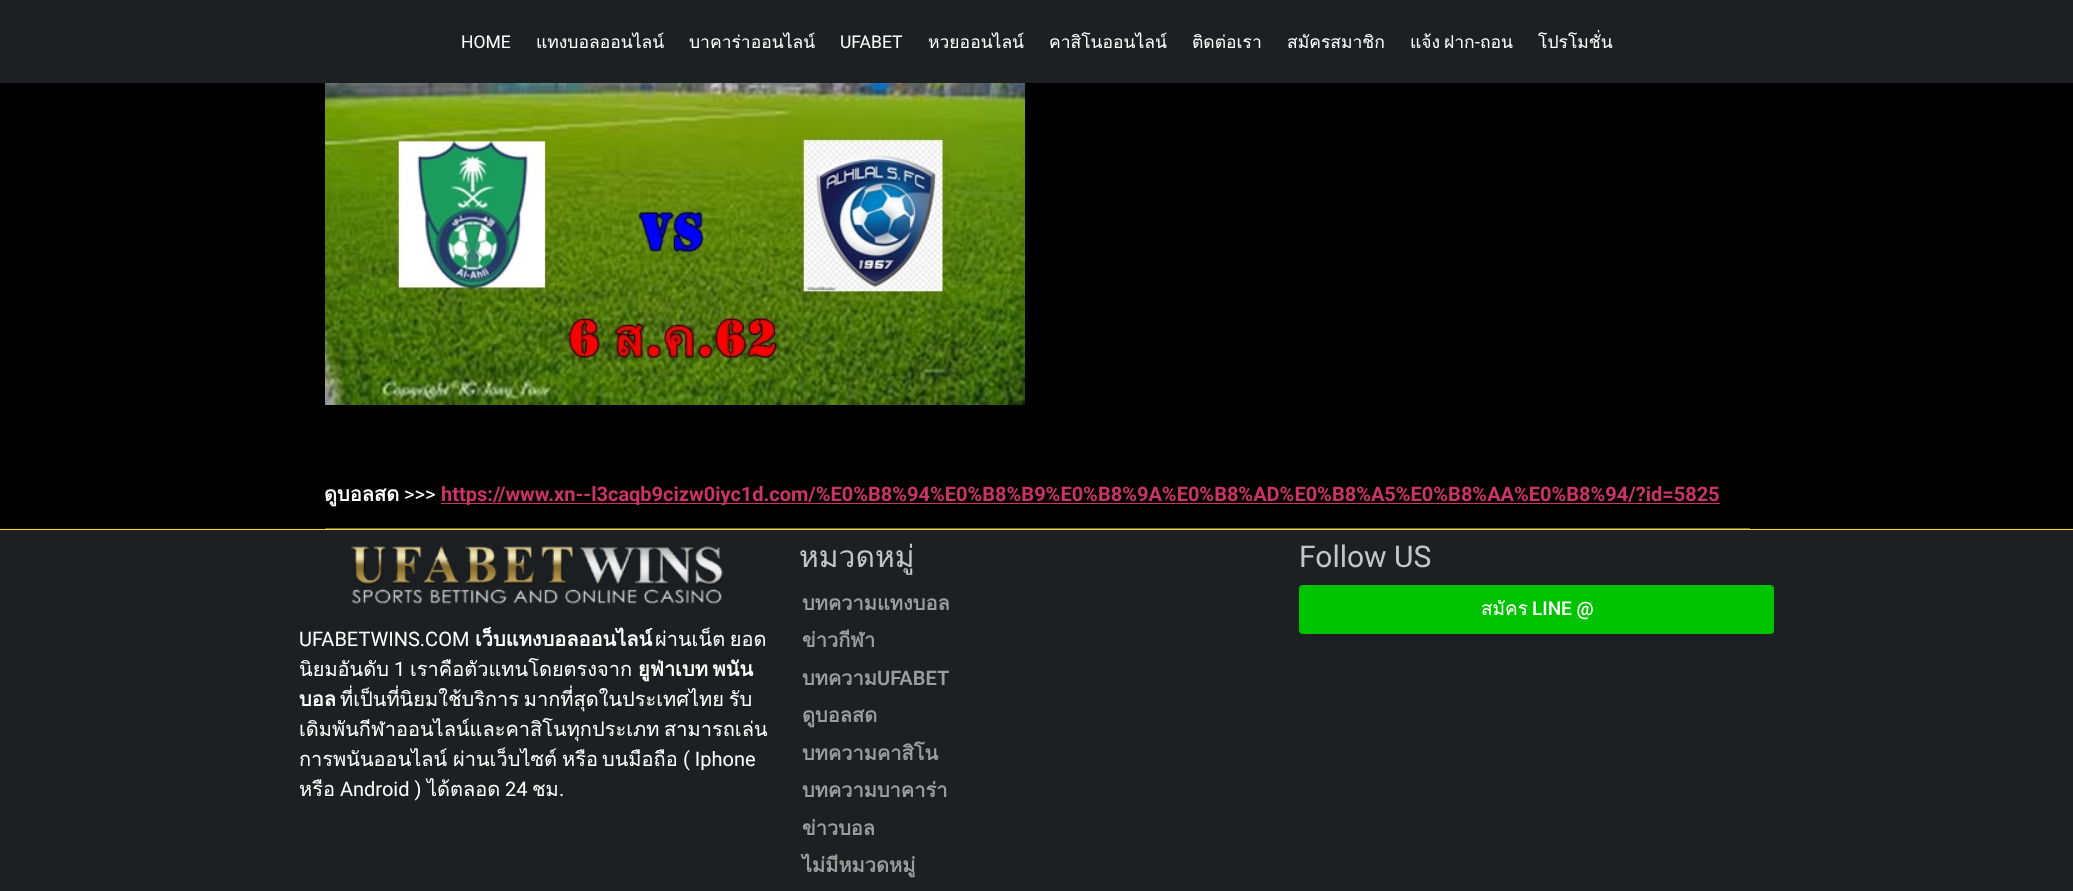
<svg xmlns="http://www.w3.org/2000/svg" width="2073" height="891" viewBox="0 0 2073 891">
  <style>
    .t1 { font: 17.5px Roboto; fill: #fff; }
    .t2 { font: 17.5px Loma; fill: #fff; }
    .t3 { font: bold 20px Loma; fill: #fff; }
    .t4 { font: 20px Roboto; fill: #fff; }
    .t5 { font: bold 20px Roboto; fill: #c36; }
    .t6 { font: 30px Loma; fill: #c5c5c5; }
    .t7 { font: bold 20px Loma; fill: #9c9c9c; }
    .t8 { font: 600 20px Roboto; fill: #9c9c9c; }
    .t9 { font: 30px Roboto; fill: #c5c5c5; }
    .t10 { font: 19px Loma; fill: #fff; }
    .t11 { font: 500 19px Roboto; fill: #fff; }
    .t12 { font: 20px Loma; fill: #fff; }
  </style>
  <rect width="100%" height="100%" fill="#000"/>
  <rect x="0" y="0" width="2073" height="83" fill="#1d2022"/>
  <text x="461" y="48" class="t1">HOME</text>
  <text x="536" y="48" class="t2">แทงบอลออนไลน์</text>
  <text x="689" y="48" class="t2">บาคาร่าออนไลน์</text>
  <text x="840" y="48" class="t1">UFABET</text>
  <text x="928" y="48" class="t2">หวยออนไลน์</text>
  <text x="1049" y="48" class="t2">คาสิโนออนไลน์</text>
  <text x="1192" y="48" class="t2">ติดต่อเรา</text>
  <text x="1287" y="48" class="t2">สมัครสมาชิก</text>
  <text x="1410" y="48" word-spacing="-2" class="t2">แจ้ง ฝาก</text>
  <text x="1475" y="48" class="t1">-</text>
  <text x="1480" y="48" class="t2">ถอน</text>
  <text x="1538" y="48" class="t2">โปรโมชั่น</text>
  <rect x="325" y="528" width="1425" height="1" fill="#666"/>
  <image x="325" y="83" width="700" height="322" href="images/1.png"/>
  <text x="324" y="501" class="t3">ดูบอลสด</text>
  <text x="404" y="501" class="t4">&gt;&gt;&gt;</text>
  <rect x="441" y="503" width="1279" height="1" fill="#c36"/>
  <text x="441" y="501" class="t5">https://www.xn--l3caqb9cizw0iyc1d.com/%E0%B8%94%E0%B8%B9%E0%B8%9A%E0%B8%AD%E0%B8%A5%E0%B8%AA%E0%B8%94/?id=5825</text>
  <rect x="0" y="530" width="2073" height="361" fill="#1d2022"/>
  <rect x="0" y="529" width="2073" height="1" fill="#ffd801"/>
  <text x="799" y="567" class="t6">หมวดหมู่</text>
  <text x="802" y="610" class="t7">บทความแทงบอล</text>
  <text x="802" y="647" class="t7">ข่าวกีฬา</text>
  <text x="802" y="685" class="t7">บทความ</text>
  <text x="877" y="685" class="t8">UFABET</text>
  <text x="802" y="722" class="t7">ดูบอลสด</text>
  <text x="802" y="760" class="t7">บทความคาสิโน</text>
  <text x="802" y="797" class="t7">บทความบาคาร่า</text>
  <text x="802" y="835" class="t7">ข่าวบอล</text>
  <text x="802" y="872" class="t7">ไม่มีหมวดหมู่</text>
  <text x="1299" y="567" class="t9">Follow US</text>
  <rect x="1299" y="585" width="475" height="49" rx="4" fill="#00c300"/>
  <text x="1481" y="615" class="t10">สมัคร</text>
  <text x="1532" y="615" class="t11">LINE @</text>
  <image x="351" y="546" width="372" height="58" href="images/2.png"/>
  <text x="299" y="646" class="t4">UFABETWINS.COM</text>
  <text x="475" y="646" class="t3">เว็บแทงบอลออนไลน์</text>
  <text x="655" y="646" word-spacing="-2" class="t12">ผ่านเน็ต ยอด</text>
  <text x="299" y="676" class="t12">นิยมอันดับ</text>
  <text x="394" y="676" class="t4">1</text>
  <text x="410" y="676" class="t12">เราคือตัวแทนโดยตรงจาก</text>
  <text x="638" y="676" word-spacing="-2" class="t3">ยูฟ่าเบท พนัน</text>
  <text x="299" y="706" class="t3">บอล</text>
  <text x="340" y="706" word-spacing="-2" class="t12">ที่เป็นที่นิยมใช้บริการ มากที่สุดในประเทศไทย รับ</text>
  <text x="299" y="736" word-spacing="-2" class="t12">เดิมพันกีฬาออนไลน์และคาสิโนทุกประเภท สามารถเล่น</text>
  <text x="299" y="766" class="t12">การพนันออนไลน์</text>
  <text x="453" y="766" class="t12">ผ่านเว็บไซต์</text>
  <text x="562" y="766" class="t12">หรือ</text>
  <text x="602" y="766" class="t12">บนมือถือ</text>
  <text x="683" y="766" class="t4">( Iphone</text>
  <text x="299" y="796" class="t12">หรือ</text>
  <text x="340" y="796" class="t4">Android )</text>
  <text x="427" y="796" class="t12">ได้ตลอด</text>
  <text x="505" y="796" class="t4">24</text>
  <text x="532" y="796" class="t12">ชม</text>
  <text x="559" y="796" class="t4">.</text>
</svg>
